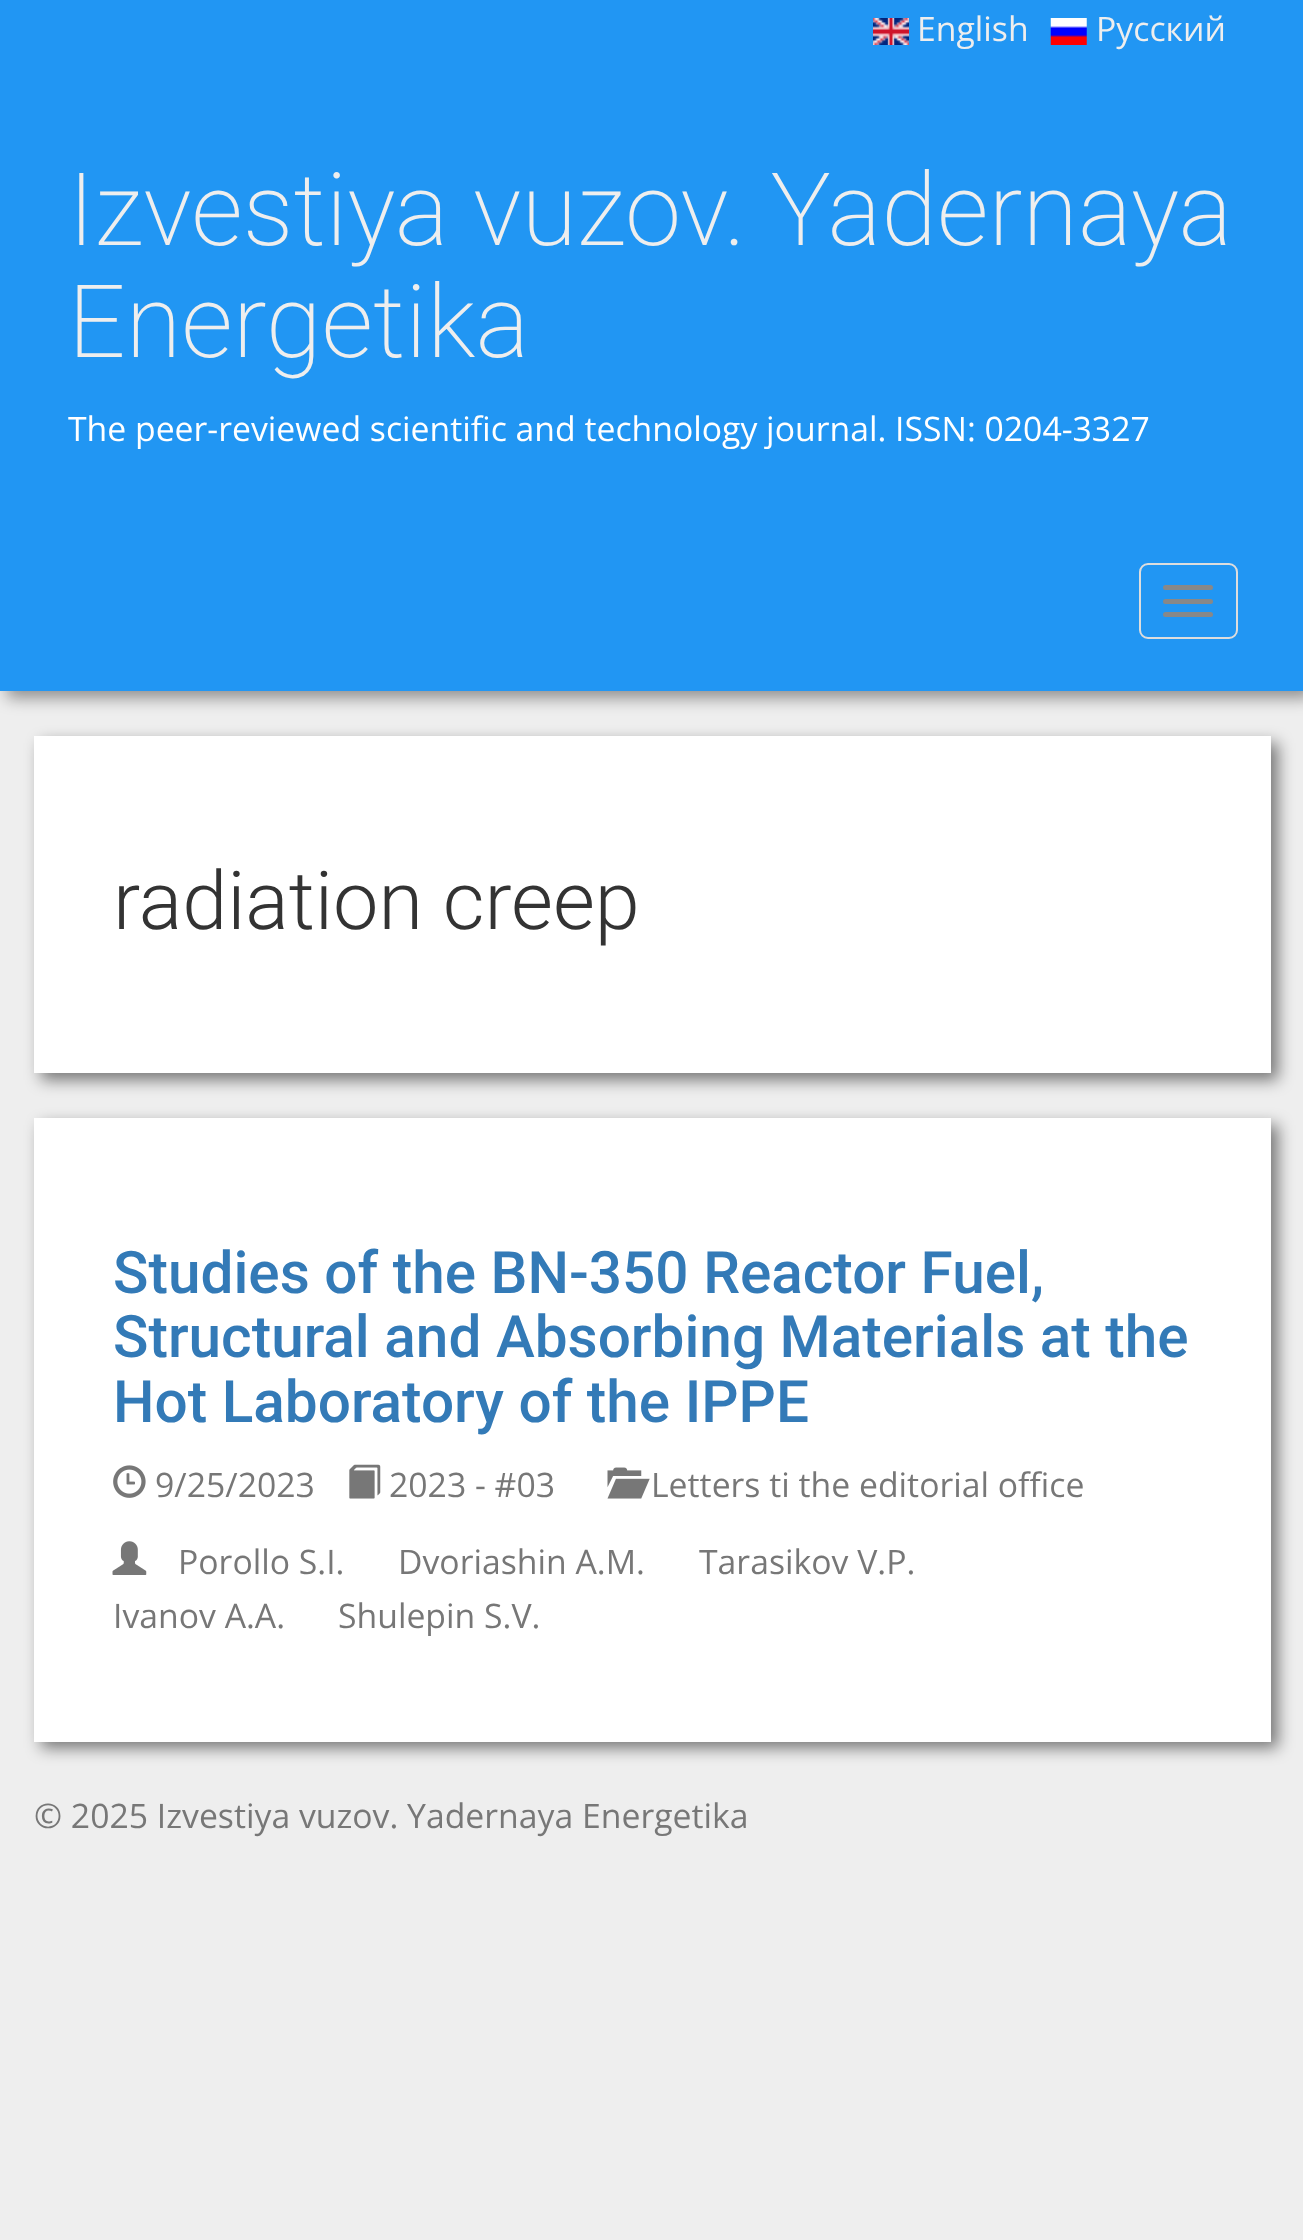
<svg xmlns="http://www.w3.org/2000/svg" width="1303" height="2240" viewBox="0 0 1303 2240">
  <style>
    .t1 { font: 33.75px Open Sans; fill: #eee; }
    .t2 { font: 200 101.25px Roboto; fill: #eee; }
    .t3 { font: 33.75px Open Sans; fill: #fff; }
    .t4 { font: 300 81px Roboto; fill: #333; }
    .t5 { font: 500 58.5px Roboto; fill: #337ab7; }
    .t6 { font: 33.75px Open Sans; fill: #777; }
  </style>
  <rect width="100%" height="100%" fill="#eee"/>
  <rect x="7" y="7" width="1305" height="691" fill="#00000066" filter="blur(8px)"/>
  <rect x="0" y="0" width="1303" height="691" fill="#2196f3"/>
  <image x="873" y="18" width="36" height="27" href="images/1.png"/>
  <text x="917" y="41" class="t1">English</text>
  <image x="1050" y="18" width="37" height="27" href="images/2.png"/>
  <text x="1096" y="41" class="t1">Русский</text>
  <text x="68" y="245" class="t2">Izvestiya vuzov. Yadernaya</text>
  <text x="68" y="357" class="t2">Energetika</text>
  <text x="68" y="441" class="t3">The peer-reviewed scientific and technology journal. ISSN: 0204-3327</text>
  <rect x="1140" y="564" width="97" height="74" rx="8" fill="none" stroke="#ddd" stroke-width="2"/>
  <rect x="1163" y="585" width="50" height="5" rx="2.5" fill="#888"/>
  <rect x="1163" y="599" width="50" height="5" rx="2.5" fill="#888"/>
  <rect x="1163" y="612" width="50" height="5" rx="2.5" fill="#888"/>
  <rect x="41" y="743" width="1237" height="337" fill="#00000080" filter="blur(8px)"/>
  <rect x="34" y="736" width="1237" height="337" fill="#fff"/>
  <text x="113" y="929" class="t4">radiation creep</text>
  <rect x="41" y="1125" width="1237" height="623" fill="#00000080" filter="blur(8px)"/>
  <rect x="34" y="1118" width="1237" height="624" fill="#fff"/>
  <text x="113" y="1293" class="t5">Studies of the BN-350 Reactor Fuel,</text>
  <text x="113" y="1357" class="t5">Structural and Absorbing Materials at the</text>
  <text x="113" y="1422" class="t5">Hot Laboratory of the IPPE</text>
  <image x="113" y="1465" width="33" height="33" href="images/3.png"/>
  <text x="155" y="1497" class="t6">9/25/2023</text>
  <image x="349" y="1464" width="32" height="35" href="images/4.png"/>
  <text x="389" y="1497" class="t6">2023 - #03</text>
  <image x="607" y="1467" width="43" height="32" href="images/5.png"/>
  <text x="651" y="1497" class="t6">Letters ti the editorial office</text>
  <image x="112" y="1541" width="35" height="34" href="images/6.png"/>
  <text x="178" y="1574" class="t6">Porollo S.I.</text>
  <text x="398" y="1574" class="t6">Dvoriashin A.M.</text>
  <text x="699" y="1574" class="t6">Tarasikov V.P.</text>
  <text x="113" y="1628" class="t6">Ivanov A.A.</text>
  <text x="338" y="1628" class="t6">Shulepin S.V.</text>
  <text x="34" y="1828" class="t6">© 2025 Izvestiya vuzov. Yadernaya Energetika</text>
</svg>
